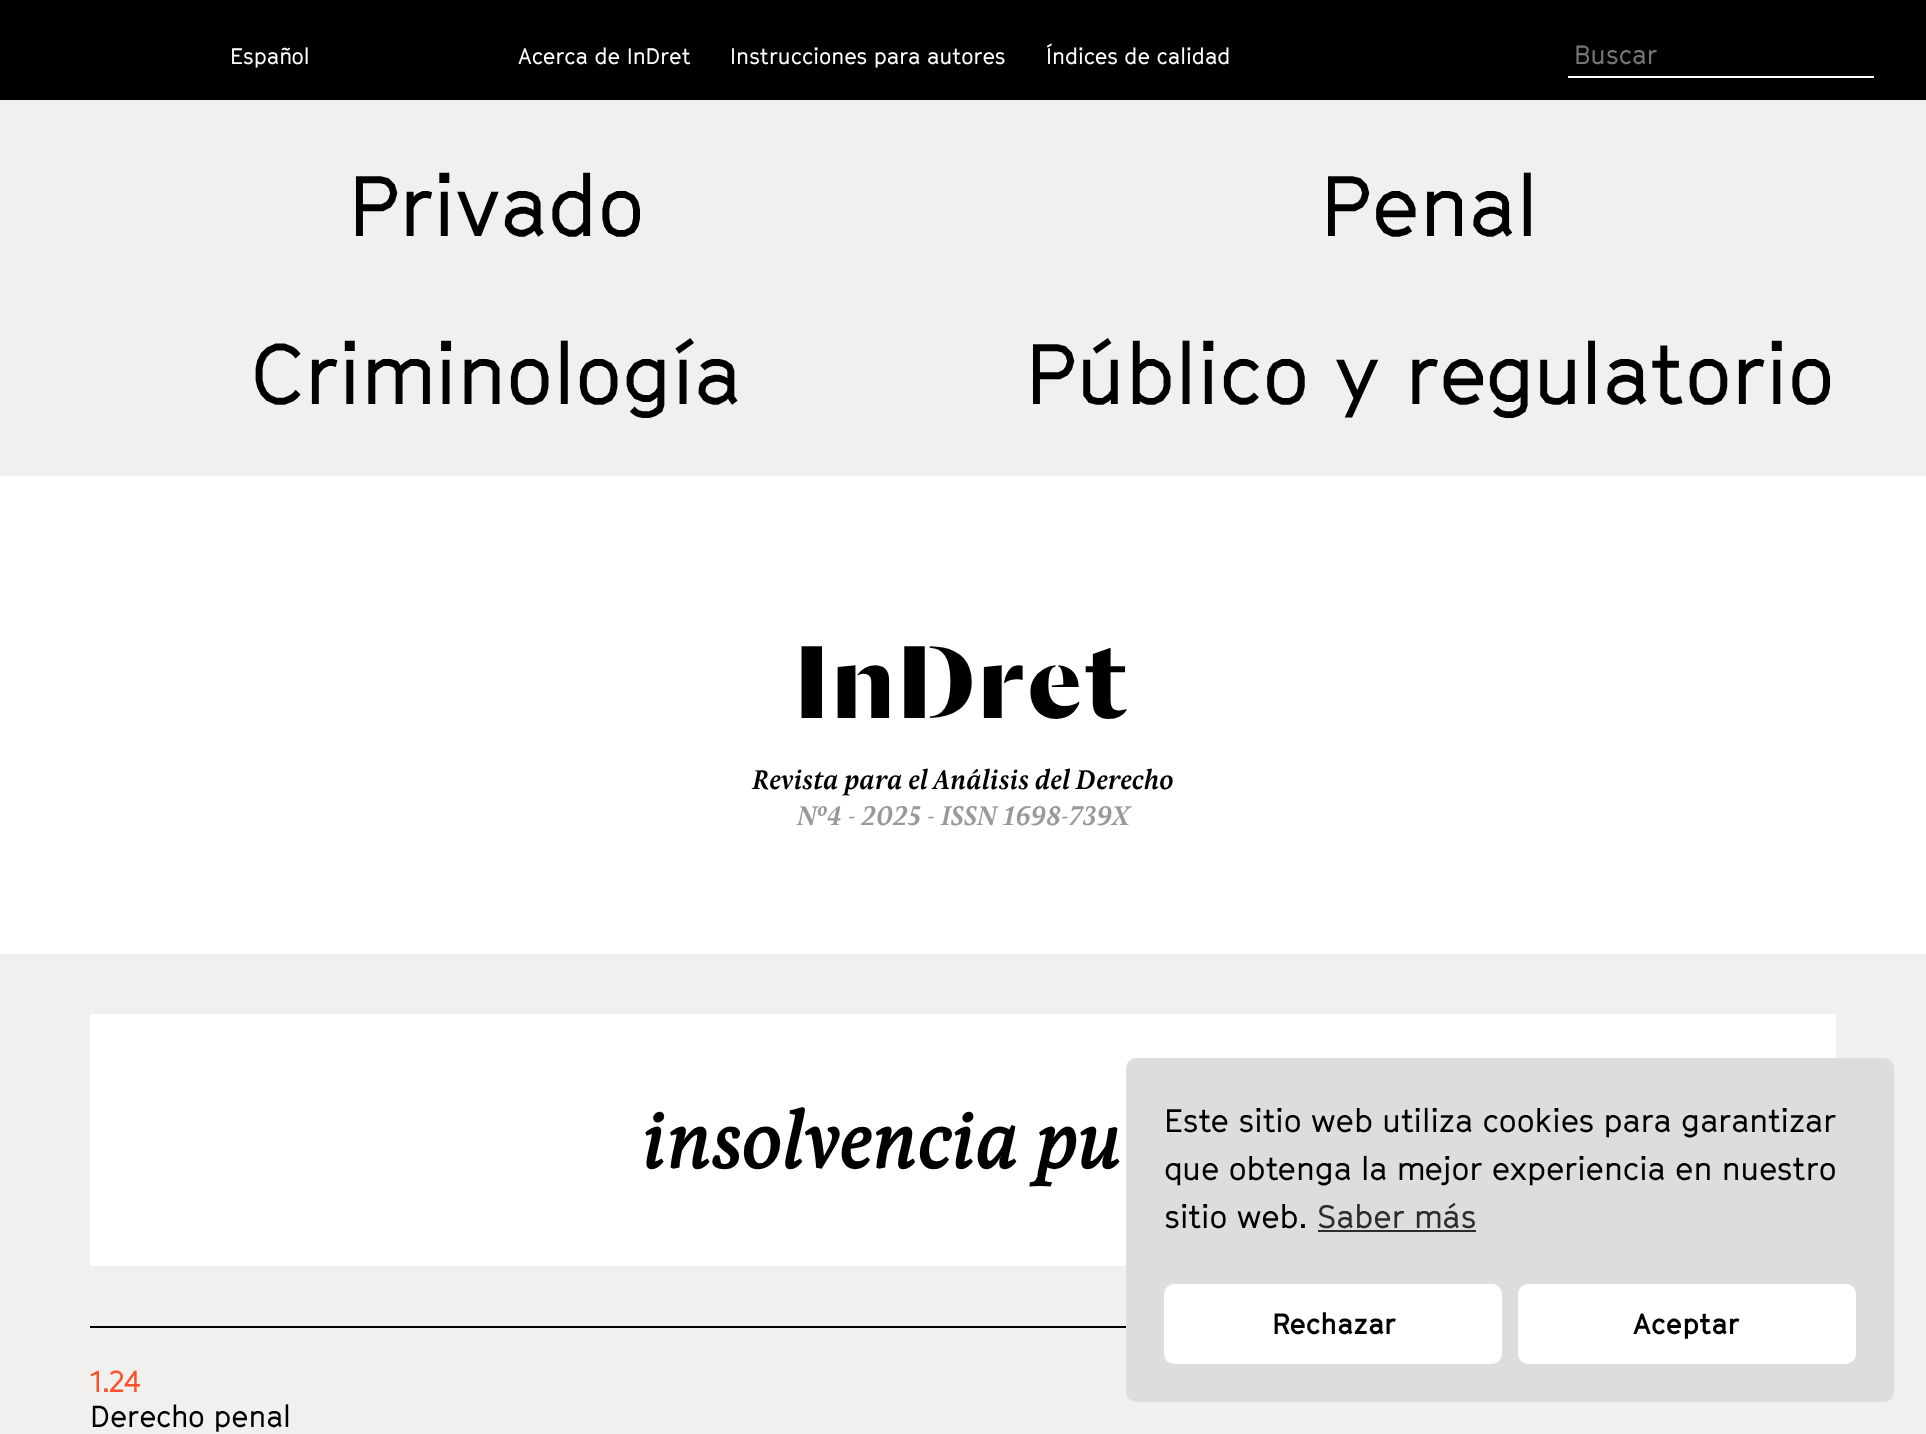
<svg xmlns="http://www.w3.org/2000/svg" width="1926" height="1434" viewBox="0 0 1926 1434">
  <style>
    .t1 { font: 22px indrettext; fill: #fff; }
    .t2 { font: 26px indrettext; fill: #757575; }
    .t3 { font: 84px indrettext; fill: #000; }
    .t4 { font: bold 114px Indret; letter-spacing: 4px; fill: #000; }
    .t5 { font: italic 600 28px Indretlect; fill: #000; }
    .t6 { font: italic 600 28px Indretlect; fill: #999; }
    .t7 { font: italic bold 80px Indretlect; fill: #000; }
    .t8 { font: 30px indrettext; fill: #fd502c; }
    .t9 { font: 30px indrettext; fill: #000; }
    .t10 { font: 32px indrettext; fill: #000; }
    .t11 { font: 32px indrettext; fill: #2c2c2c; }
    .t12 { font: bold 29px indrettext; fill: #000; }
  </style>
  <rect width="100%" height="100%" fill="#fff"/>
  <rect x="0" y="0" width="1926" height="100" fill="#000"/>
  <text x="230" y="64" class="t1">Español</text>
  <text x="518" y="64" class="t1">Acerca de InDret</text>
  <text x="730" y="64" class="t1">Instrucciones para autores</text>
  <text x="1046" y="64" class="t1">Índices de calidad</text>
  <rect x="1568" y="76" width="306" height="2" fill="#fff"/>
  <text x="1574" y="64" class="t2">Buscar</text>
  <rect x="0" y="100" width="1926" height="376" fill="#f1f0ee"/>
  <text x="348" y="236" class="t3">Privado</text>
  <text x="1320" y="236" class="t3">Penal</text>
  <text x="251" y="404" class="t3">Criminología</text>
  <text x="1025" y="404" class="t3">Público y regulatorio</text>
  <text x="795" y="718" class="t4">InDret</text>
  <text x="752" y="789" class="t5">Revista para el Análisis del Derecho</text>
  <text x="797" y="825" class="t6">Nº4 - 2025 - ISSN 1698-739X</text>
  <rect x="0" y="954" width="1926" height="480" fill="#f1f0ee"/>
  <rect x="90" y="1014" width="1746" height="252" fill="#fff"/>
  <text x="640" y="1168" class="t7">insolvencia pu</text>
  <rect x="90" y="1326" width="1036" height="2" fill="#000"/>
  <text x="90" y="1392" class="t8">1.24</text>
  <text x="90" y="1427" class="t9">Derecho penal</text>
  <rect x="1126" y="1058" width="768" height="344" rx="10" fill="#ddd"/>
  <text x="1164" y="1132" class="t10">Este sitio web utiliza cookies para garantizar</text>
  <text x="1164" y="1180" class="t10">que obtenga la mejor experiencia en nuestro</text>
  <text x="1164" y="1228" class="t10">sitio web.</text>
  <text x="1317" y="1228" class="t11">Saber más</text>
  <rect x="1318" y="1230" width="158" height="2" fill="#2c2c2c"/>
  <rect x="1164" y="1284" width="338" height="80" rx="10" fill="#fff"/>
  <text x="1272" y="1334" class="t12">Rechazar</text>
  <rect x="1518" y="1284" width="338" height="80" rx="10" fill="#fff"/>
  <text x="1633" y="1334" class="t12">Aceptar</text>
</svg>
